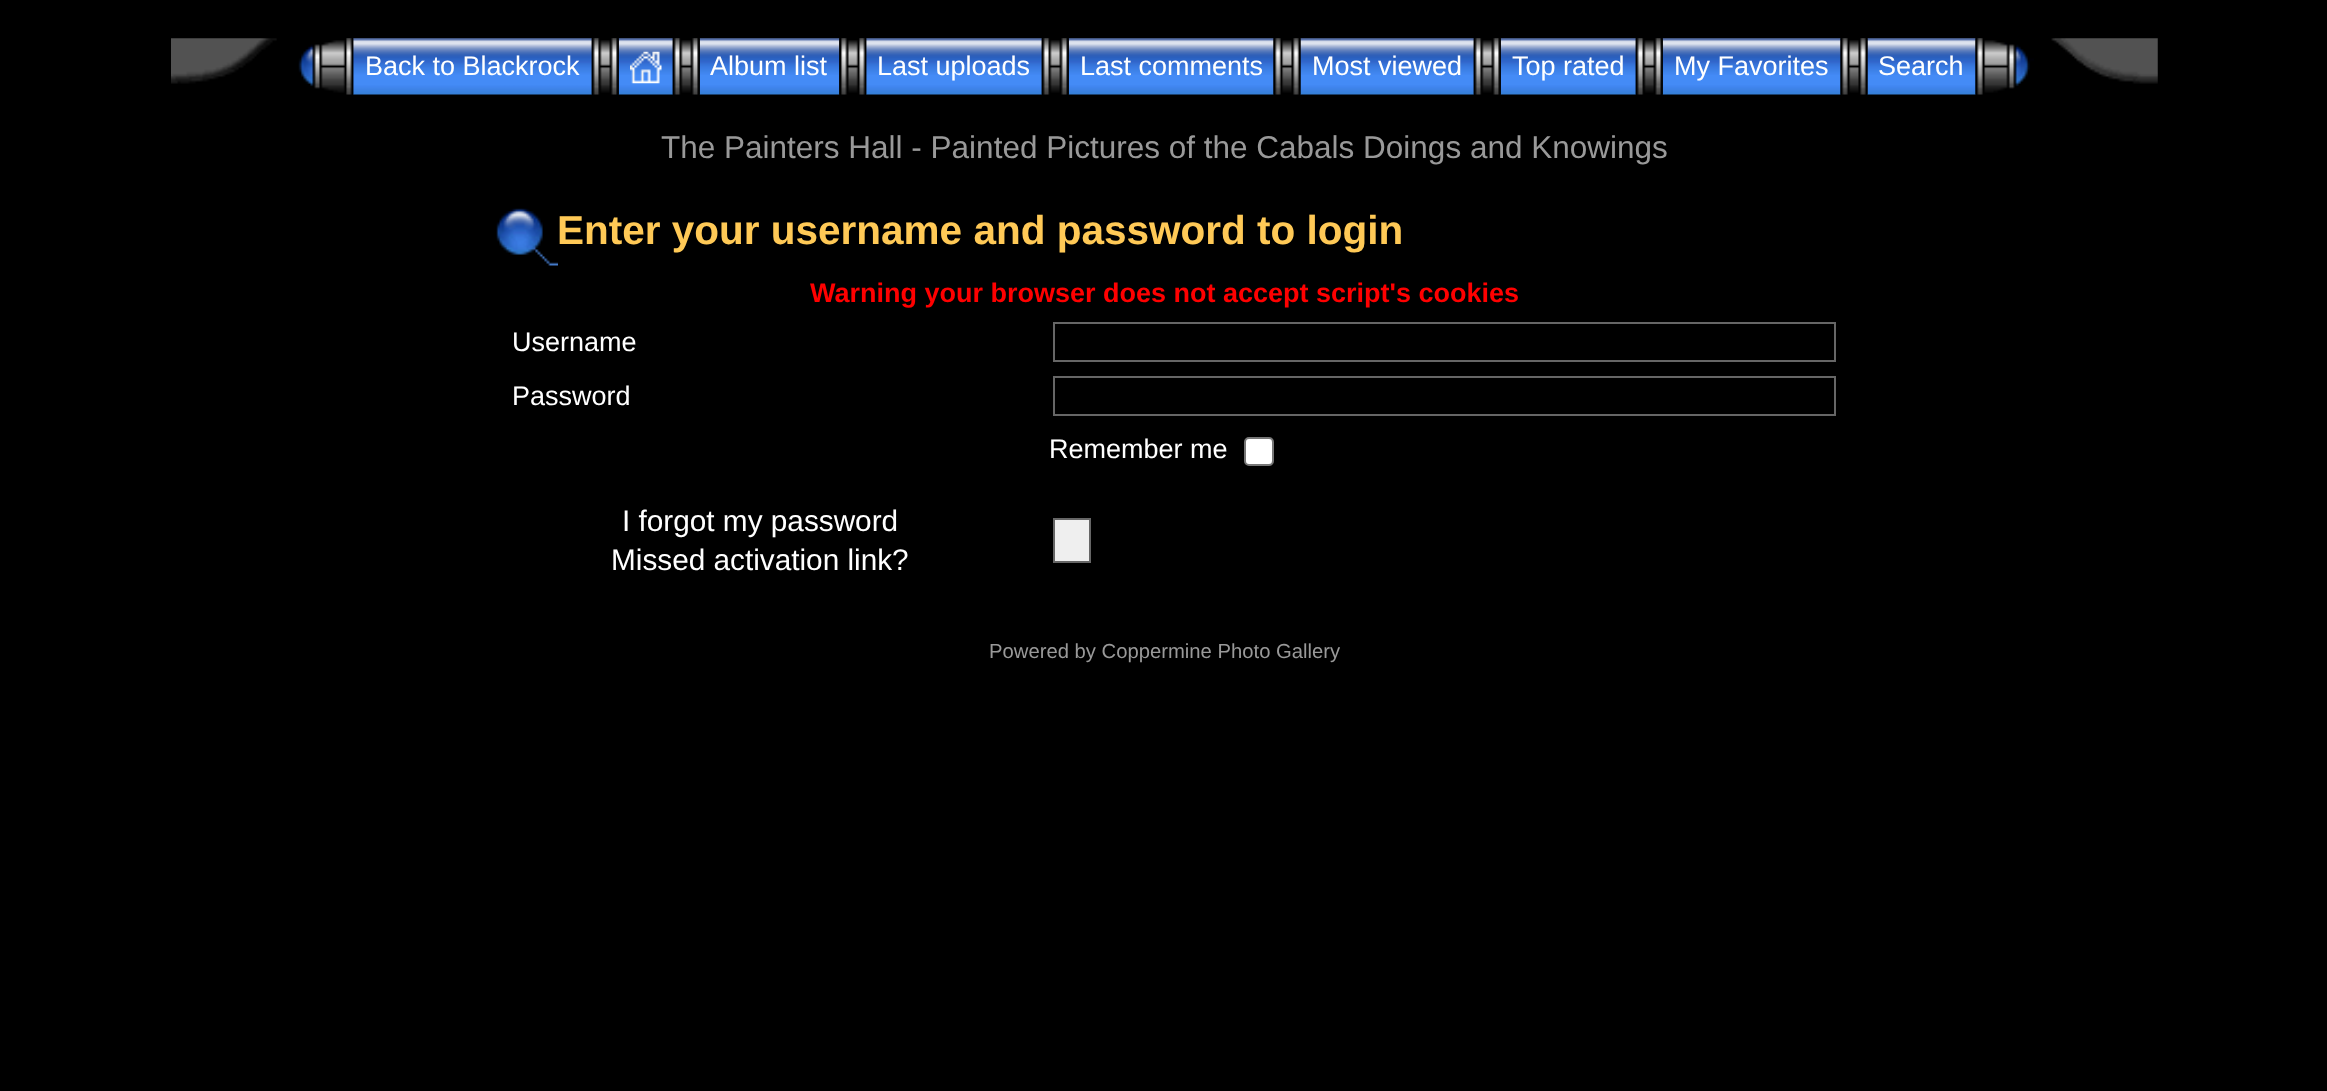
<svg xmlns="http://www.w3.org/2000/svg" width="2327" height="1091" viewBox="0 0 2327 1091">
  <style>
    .t1 { font: 27px Liberation Sans; fill: #fff; }
    .t2 { font: 31.5px Liberation Sans; fill: #999; }
    .t3 { font: bold 40.5px Liberation Sans; fill: #ffc956; }
    .t4 { font: bold 27px Liberation Sans; fill: #f00; }
    .t5 { font: 29.75px Liberation Sans; fill: #fff; }
    .t6 { font: 20.25px Liberation Sans; fill: #999; }
  </style>
  <rect width="100%" height="100%" fill="#000"/>
  <image x="171" y="38" width="106" height="46" href="images/1.png"/>
  <image x="353" y="38" width="239" height="57" href="images/3.png"/>
  <image x="298" y="38" width="56" height="57" href="images/2.png"/>
  <text x="365" y="75" class="t1">Back to Blackrock</text>
  <image x="618" y="38" width="55" height="57" href="images/5.png"/>
  <image x="591" y="38" width="28" height="57" href="images/4.png"/>
  <image x="630" y="51" width="32" height="33" href="images/6.png"/>
  <image x="699" y="38" width="141" height="57" href="images/8.png"/>
  <image x="672" y="38" width="28" height="57" href="images/7.png"/>
  <text x="710" y="75" class="t1">Album list</text>
  <image x="866" y="38" width="176" height="57" href="images/10.png"/>
  <image x="839" y="38" width="28" height="57" href="images/9.png"/>
  <text x="877" y="75" class="t1">Last uploads</text>
  <image x="1068" y="38" width="206" height="57" href="images/12.png"/>
  <image x="1041" y="38" width="28" height="57" href="images/11.png"/>
  <text x="1080" y="75" class="t1">Last comments</text>
  <image x="1300" y="38" width="174" height="57" href="images/14.png"/>
  <image x="1273" y="38" width="28" height="57" href="images/13.png"/>
  <text x="1312" y="75" class="t1">Most viewed</text>
  <image x="1500" y="38" width="136" height="57" href="images/15.png"/>
  <image x="1473" y="38" width="28" height="57" href="images/7.png"/>
  <text x="1512" y="75" class="t1">Top rated</text>
  <image x="1662" y="38" width="179" height="57" href="images/16.png"/>
  <image x="1635" y="38" width="28" height="57" href="images/11.png"/>
  <text x="1674" y="75" class="t1">My Favorites</text>
  <image x="1867" y="38" width="109" height="57" href="images/17.png"/>
  <image x="1840" y="38" width="28" height="57" href="images/13.png"/>
  <text x="1878" y="75" class="t1">Search</text>
  <image x="1975" y="38" width="59" height="57" href="images/18.png"/>
  <image x="2051" y="38" width="107" height="46" href="images/19.png"/>
  <text x="661" y="158" class="t2">The Painters Hall - Painted Pictures of the Cabals Doings and Knowings</text>
  <image x="496" y="208" width="62" height="58" href="images/20.png"/>
  <text x="557" y="244" class="t3">Enter your username and password to login</text>
  <text x="810" y="302" class="t4">Warning your browser does not accept script's cookies</text>
  <text x="512" y="351" class="t1">Username</text>
  <rect x="1054" y="323" width="781" height="38" fill="none" stroke="#666" stroke-width="2"/>
  <text x="512" y="405" class="t1">Password</text>
  <rect x="1054" y="377" width="781" height="38" fill="none" stroke="#666" stroke-width="2"/>
  <text x="1049" y="458" class="t1">Remember me</text>
  <rect x="1245" y="438" width="28" height="27" rx="4" fill="#fff" stroke="#767676" stroke-width="2"/>
  <text x="622" y="531" class="t5">I forgot my password</text>
  <text x="611" y="570" class="t5">Missed activation link?</text>
  <rect x="1054" y="519" width="36" height="43" fill="#efefef" stroke="#666" stroke-width="2"/>
  <text x="989" y="658" class="t6">Powered by Coppermine Photo Gallery</text>
</svg>
